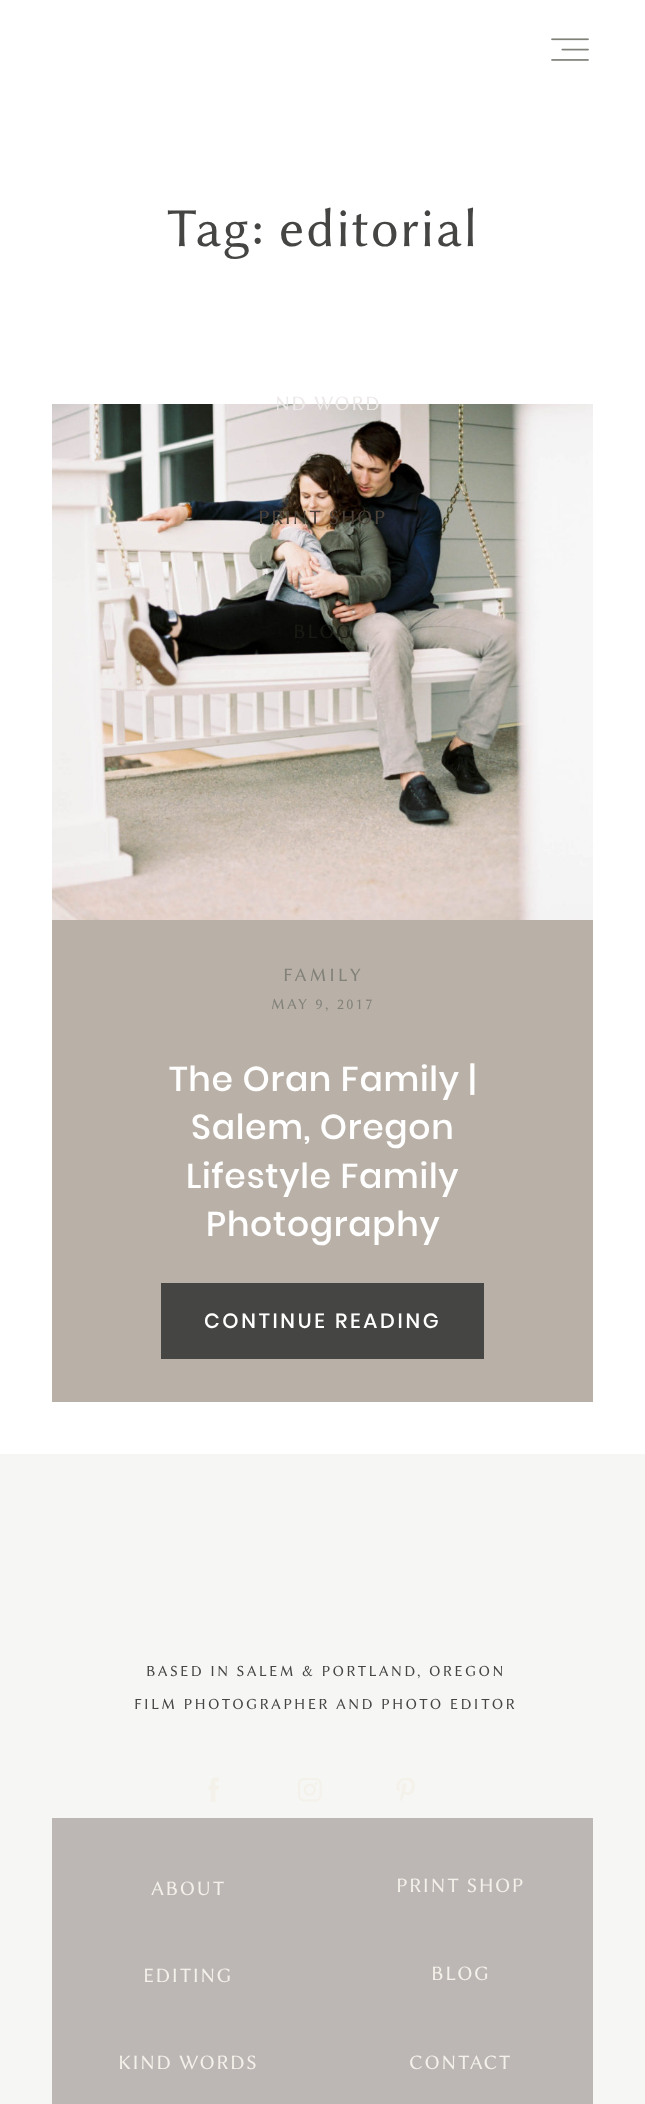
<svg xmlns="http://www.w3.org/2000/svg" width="645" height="2104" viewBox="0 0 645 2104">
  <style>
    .t1 { font: 55px Libertinus Sans; letter-spacing: 1.1px; fill: #454543; }
    .t2 { font: 19px Libertinus Sans; letter-spacing: 3px; fill: #81817a; }
    .t3 { font: 15.5px Libertinus Sans; letter-spacing: 2.3px; fill: #81817a; }
    .t4 { font: 500 34.5px Poppins; letter-spacing: 0.7px; fill: #fff; }
    .t5 { font: 500 20.6px Poppins; letter-spacing: 2.7px; fill: #fff; }
    .t6 { font: 15.5px Libertinus Sans; letter-spacing: 2.3px; fill: #454543; }
    .t7 { font: 20.6px Libertinus Sans; letter-spacing: 1.5px; fill: #f3f1e9; }
    .t8 { font: 20.6px Libertinus Sans; letter-spacing: 1.5px; fill: #ece9e8; }
    .t9 { font: 20.6px Libertinus Sans; letter-spacing: 1.5px; fill: #4d433a; }
    .t10 { font: 20.6px Libertinus Sans; letter-spacing: 1.5px; fill: #191a14; }
  </style>
  <rect width="100%" height="100%" fill="#fff"/>
  <image x="551" y="38" width="38" height="23" href="images/1.png"/>
  <text x="167" y="246" class="t1">Tag: editorial</text>
  <image x="52" y="404" width="541" height="516" href="images/2.png"/>
  <rect x="52" y="920" width="541" height="482" fill="#b9b1a7"/>
  <text x="283" y="981" class="t2">FAMILY</text>
  <text x="271" y="1009" class="t3">MAY 9, 2017</text>
  <text x="169" y="1091" class="t4">The Oran Family |</text>
  <text x="191" y="1139" class="t4">Salem, Oregon</text>
  <text x="186" y="1188" class="t4">Lifestyle Family</text>
  <text x="206" y="1236" class="t4">Photography</text>
  <rect x="161" y="1283" width="323" height="76" fill="#454543"/>
  <text x="204" y="1328" class="t5">CONTINUE READING</text>
  <rect x="0" y="1454" width="645" height="650" fill="#f6f6f4"/>
  <text x="146" y="1676" class="t6">BASED IN SALEM &amp; PORTLAND, OREGON</text>
  <text x="134" y="1709" class="t6">FILM PHOTOGRAPHER AND PHOTO EDITOR</text>
  <image x="208" y="1777" width="11" height="25" href="images/3.png"/>
  <image x="298" y="1778" width="24" height="24" href="images/4.png"/>
  <image x="396" y="1778" width="19" height="23" href="images/5.png"/>
  <rect x="52" y="1818" width="541" height="286" fill="#bcb6b5"/>
  <text x="151" y="1895" class="t7">ABOUT</text>
  <text x="143" y="1982" class="t7">EDITING</text>
  <text x="118" y="2069" class="t7">KIND WORDS</text>
  <text x="396" y="1892" class="t7">PRINT SHOP</text>
  <text x="431" y="1980" class="t7">BLOG</text>
  <text x="409" y="2069" class="t7">CONTACT</text>
  <text x="275" y="410" class="t8">ND WORD</text>
  <text x="258" y="524" class="t9">PRINT SHOP</text>
  <text x="293" y="638" class="t10">BLOG</text>
</svg>
